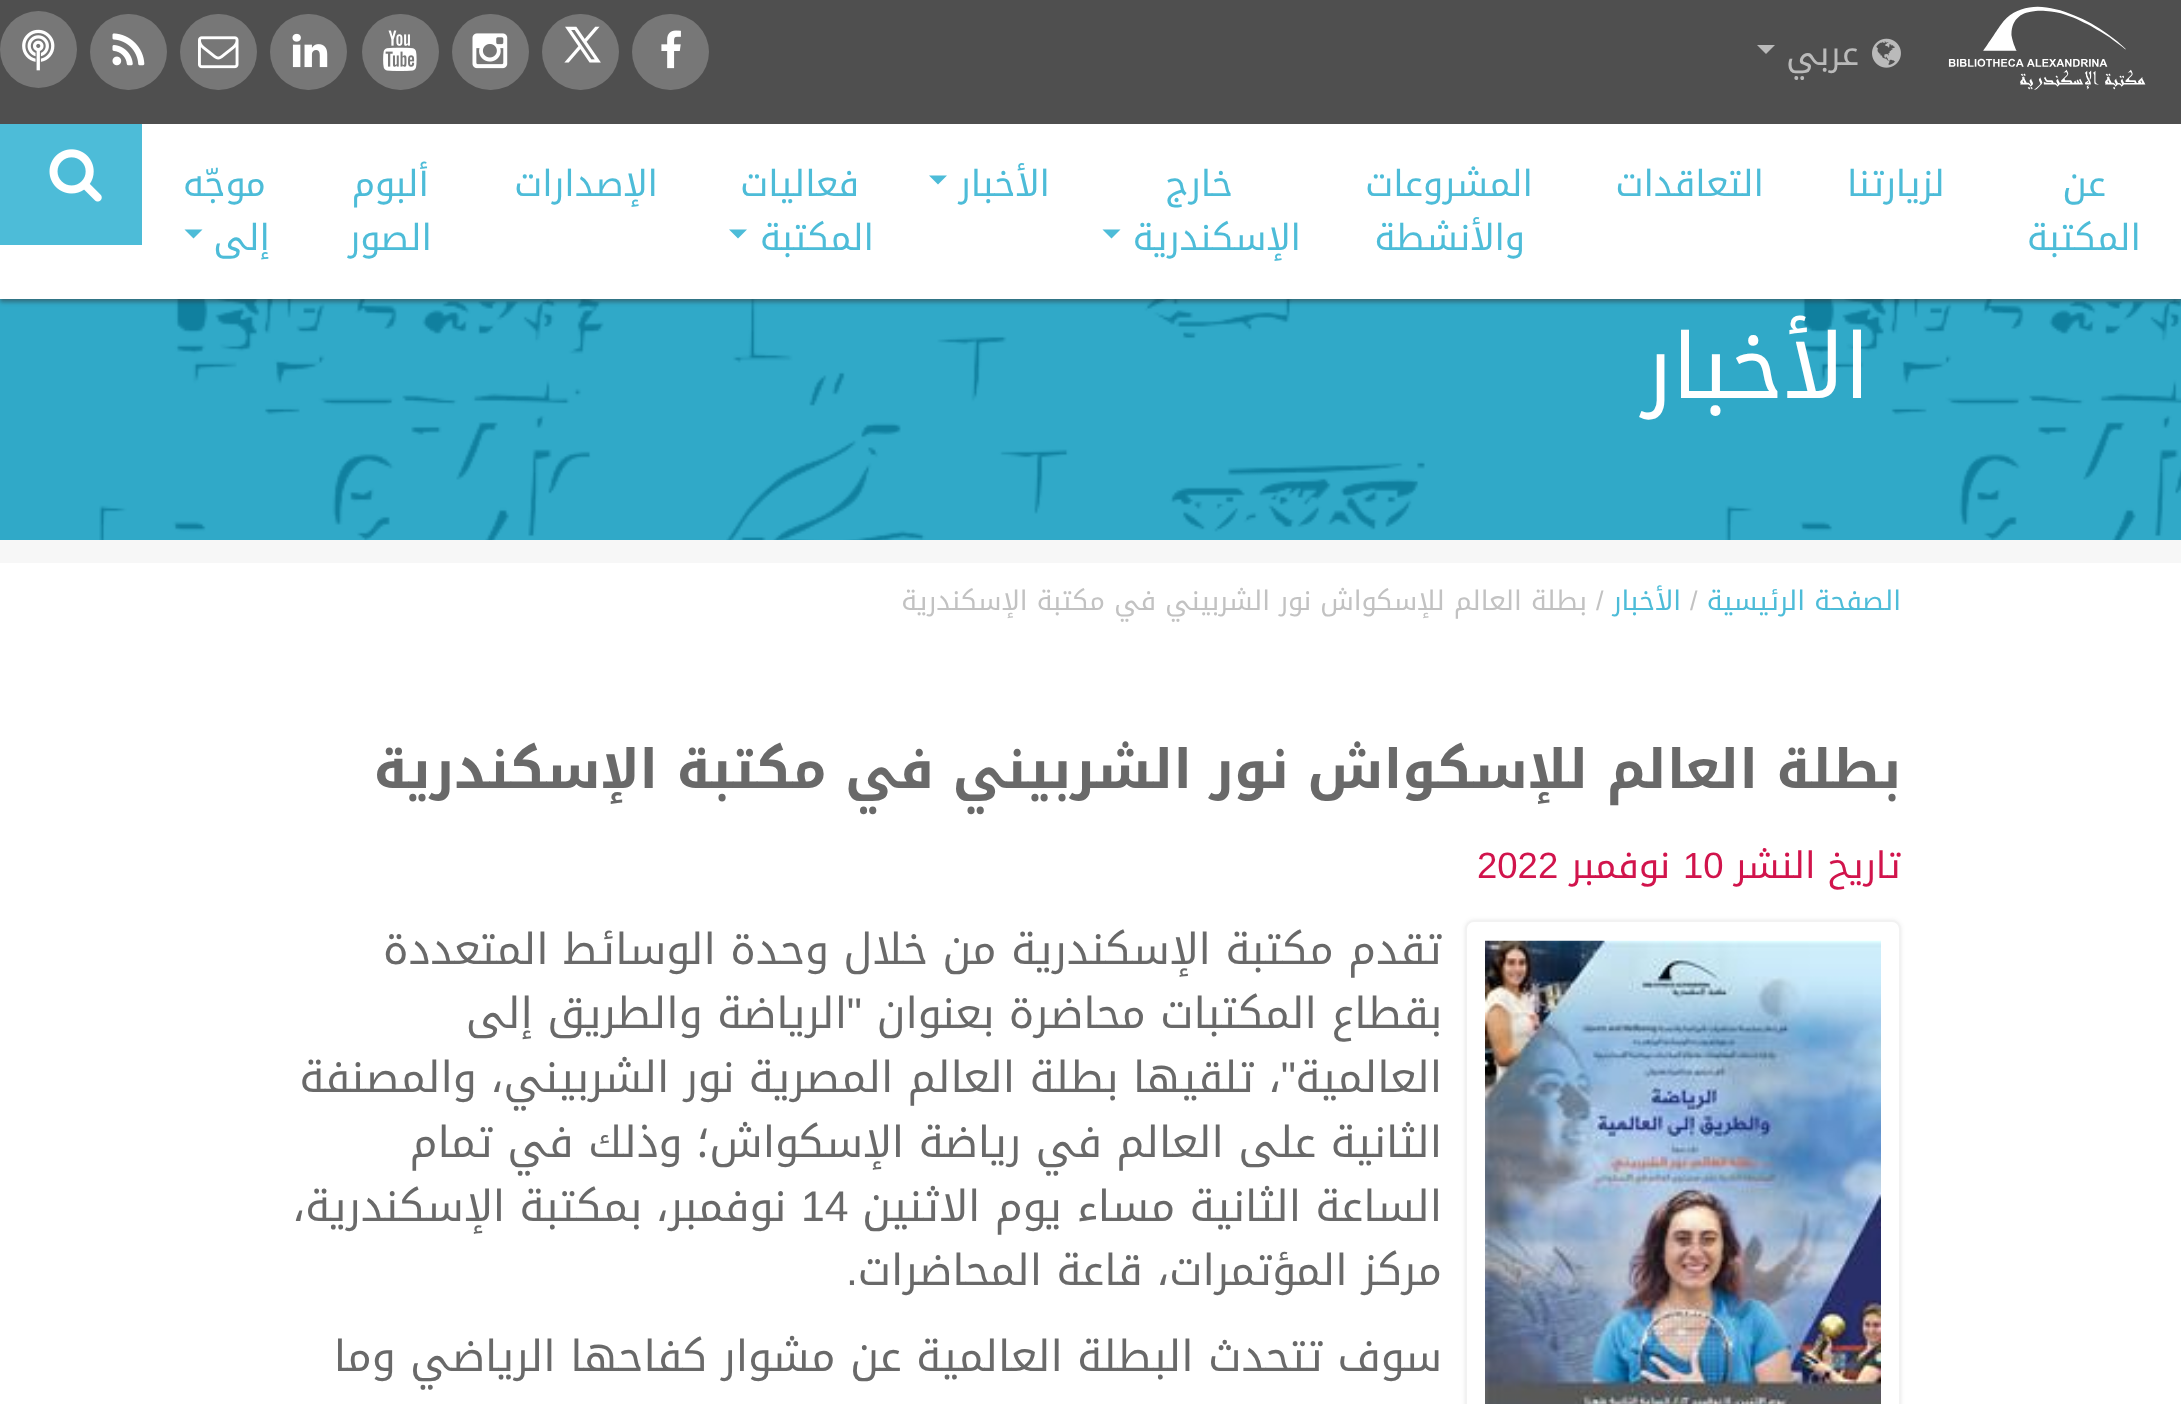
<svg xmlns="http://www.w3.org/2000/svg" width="2181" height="1404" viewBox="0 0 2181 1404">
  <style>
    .t1 { font: 34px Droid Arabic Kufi; direction: rtl; fill: #bababa; }
    .t2 { font: 36px Droid Arabic Kufi; direction: rtl; fill: #4dbcd8; }
    .t3 { font: 90px Droid Arabic Kufi; letter-spacing: -4.5px; direction: rtl; fill: #fff; }
    .t4 { font: 27px Droid Arabic Kufi; direction: rtl; fill: #4dbcd8; }
    .t5 { font: 27px Liberation Sans; fill: #c2c2c2; }
    .t6 { font: 27px Droid Arabic Kufi; direction: rtl; fill: #c2c2c2; }
    .t7 { font: bold 54px Droid Arabic Kufi; direction: rtl; fill: #696969; }
    .t8 { font: 36.5px Droid Arabic Kufi; direction: rtl; fill: #d1144c; }
    .t9 { font: 36.5px Liberation Sans; fill: #d1144c; }
    .t10 { font: 42.75px Droid Arabic Kufi; direction: rtl; fill: #696969; }
    .t11 { font: 42.75px Liberation Sans; direction: rtl; fill: #696969; }
    .t12 { font: 42.75px Liberation Sans; fill: #696969; }
  </style>
  <rect width="100%" height="100%" fill="#fff"/>
  <rect x="0" y="299" width="2181" height="241" fill="#30a9c8"/>
  <image x="99" y="299" width="2082" height="241" href="images/12.png"/>
  <rect x="0" y="2" width="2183" height="300" fill="#32323280" filter="blur(2px)"/>
  <rect x="0" y="124" width="2181" height="175" fill="#fff"/>
  <rect x="0" y="0" width="2181" height="124" fill="#4f4f4f"/>
  <image x="1948" y="6" width="198" height="84" href="images/1.png"/>
  <image x="1872" y="38" width="29" height="30" href="images/2.png"/>
  <text x="1859" y="65" class="t1">عربي</text>
  <path d="M1757 45H1775L1766 54Z" fill="#bababa"/>
  <rect x="632" y="14" width="77" height="76" rx="38" fill="#777"/>
  <image x="661" y="30" width="20" height="39" href="images/3.png"/>
  <rect x="542" y="14" width="77" height="76" rx="38" fill="#777"/>
  <image x="564" y="26" width="37" height="37" href="images/4.png"/>
  <rect x="452" y="14" width="77" height="76" rx="38" fill="#777"/>
  <image x="472" y="33" width="36" height="36" href="images/5.png"/>
  <rect x="362" y="14" width="77" height="76" rx="38" fill="#777"/>
  <image x="383" y="30" width="34" height="41" href="images/6.png"/>
  <rect x="270" y="14" width="77" height="76" rx="38" fill="#777"/>
  <image x="292" y="33" width="36" height="35" href="images/7.png"/>
  <rect x="180" y="14" width="77" height="76" rx="38" fill="#777"/>
  <image x="198" y="36" width="41" height="33" href="images/8.png"/>
  <rect x="90" y="14" width="77" height="76" rx="38" fill="#777"/>
  <image x="112" y="33" width="33" height="33" href="images/9.png"/>
  <circle cx="38.5" cy="49.5" r="38.5" fill="#777"/>
  <image x="22" y="29" width="33" height="42" href="images/10.png"/>
  <text x="2106" y="196" class="t2">عن</text>
  <text x="2141" y="250" class="t2">المكتبة</text>
  <text x="1945" y="196" class="t2">لزيارتنا</text>
  <text x="1764" y="196" class="t2">التعاقدات</text>
  <text x="1533" y="196" class="t2">المشروعات</text>
  <text x="1525" y="250" class="t2">والأنشطة</text>
  <text x="1233" y="196" class="t2">خارج</text>
  <text x="1301" y="250" class="t2">الإسكندرية</text>
  <path d="M1102.5 229.5H1120.5L1111.5 238.5Z" fill="#4dbcd8"/>
  <text x="1050" y="196" class="t2">الأخبار</text>
  <path d="M929 175.5H947L938 184.5Z" fill="#4dbcd8"/>
  <text x="859" y="196" class="t2">فعاليات</text>
  <text x="874" y="250" class="t2">المكتبة</text>
  <path d="M729 229.5H747L738 238.5Z" fill="#4dbcd8"/>
  <text x="658" y="196" class="t2">الإصدارات</text>
  <text x="429" y="196" class="t2">ألبوم</text>
  <text x="432" y="250" class="t2">الصور</text>
  <text x="266" y="196" class="t2">موجّه</text>
  <text x="270" y="250" class="t2">إلى</text>
  <path d="M184.5 229.5H202.5L193.5 238.5Z" fill="#4dbcd8"/>
  <rect x="0" y="124" width="142" height="121" fill="#4dbcd8"/>
  <image x="49" y="149" width="53" height="53" href="images/11.png"/>
  <rect x="0" y="540" width="2181" height="23" fill="#f7f7f7"/>
  <text x="1870" y="398" class="t3">الأخبار</text>
  <text x="1901" y="610" class="t4">الصفحة الرئيسية</text>
  <text x="1690" y="610" class="t5">/</text>
  <text x="1681" y="610" class="t4">الأخبار</text>
  <text x="1596" y="610" class="t5">/</text>
  <text x="1587" y="610" class="t6">بطلة العالم للإسكواش نور الشربيني في مكتبة الإسكندرية</text>
  <text x="1901" y="788" class="t7">بطلة العالم للإسكواش نور الشربيني في مكتبة الإسكندرية</text>
  <text x="1901" y="878" class="t8">تاريخ النشر</text>
  <text x="1683" y="878" class="t9">10</text>
  <text x="1670" y="878" class="t8">نوفمبر</text>
  <text x="1477" y="878" class="t9">2022</text>
  <rect x="1465" y="920" width="436" height="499" rx="9" fill="#3232321a" filter="blur(2px)"/>
  <rect x="1466" y="921" width="434" height="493" rx="8" fill="#fff" stroke="#f2f2f2" stroke-width="2"/>
  <image x="1485" y="940" width="396" height="464" href="images/13.png"/>
  <text x="1442" y="964" class="t10">تقدم مكتبة الإسكندرية من خلال وحدة الوسائط المتعددة</text>
  <text x="1442" y="1028" class="t10">بقطاع المكتبات محاضرة بعنوان</text>
  <text x="862" y="1028" class="t11">"</text>
  <text x="847" y="1028" class="t10">الرياضة والطريق إلى</text>
  <text x="1442" y="1092" class="t10">العالمية</text>
  <text x="1296" y="1092" class="t11">"</text>
  <text x="1281" y="1092" class="t10">، تلقيها بطلة العالم المصرية نور الشربيني، والمصنفة</text>
  <text x="1442" y="1157" class="t10">الثانية على العالم في رياضة الإسكواش؛ وذلك في تمام</text>
  <text x="1442" y="1221" class="t10">الساعة الثانية مساء يوم الاثنين</text>
  <text x="801" y="1221" class="t12">14</text>
  <text x="786" y="1221" class="t10">نوفمبر، بمكتبة الإسكندرية،</text>
  <text x="1442" y="1285" class="t10">مركز المؤتمرات، قاعة المحاضرات</text>
  <text x="858" y="1285" class="t11">.</text>
  <text x="1442" y="1371" class="t10">سوف تتحدث البطلة العالمية عن مشوار كفاحها الرياضي وما</text>
</svg>
